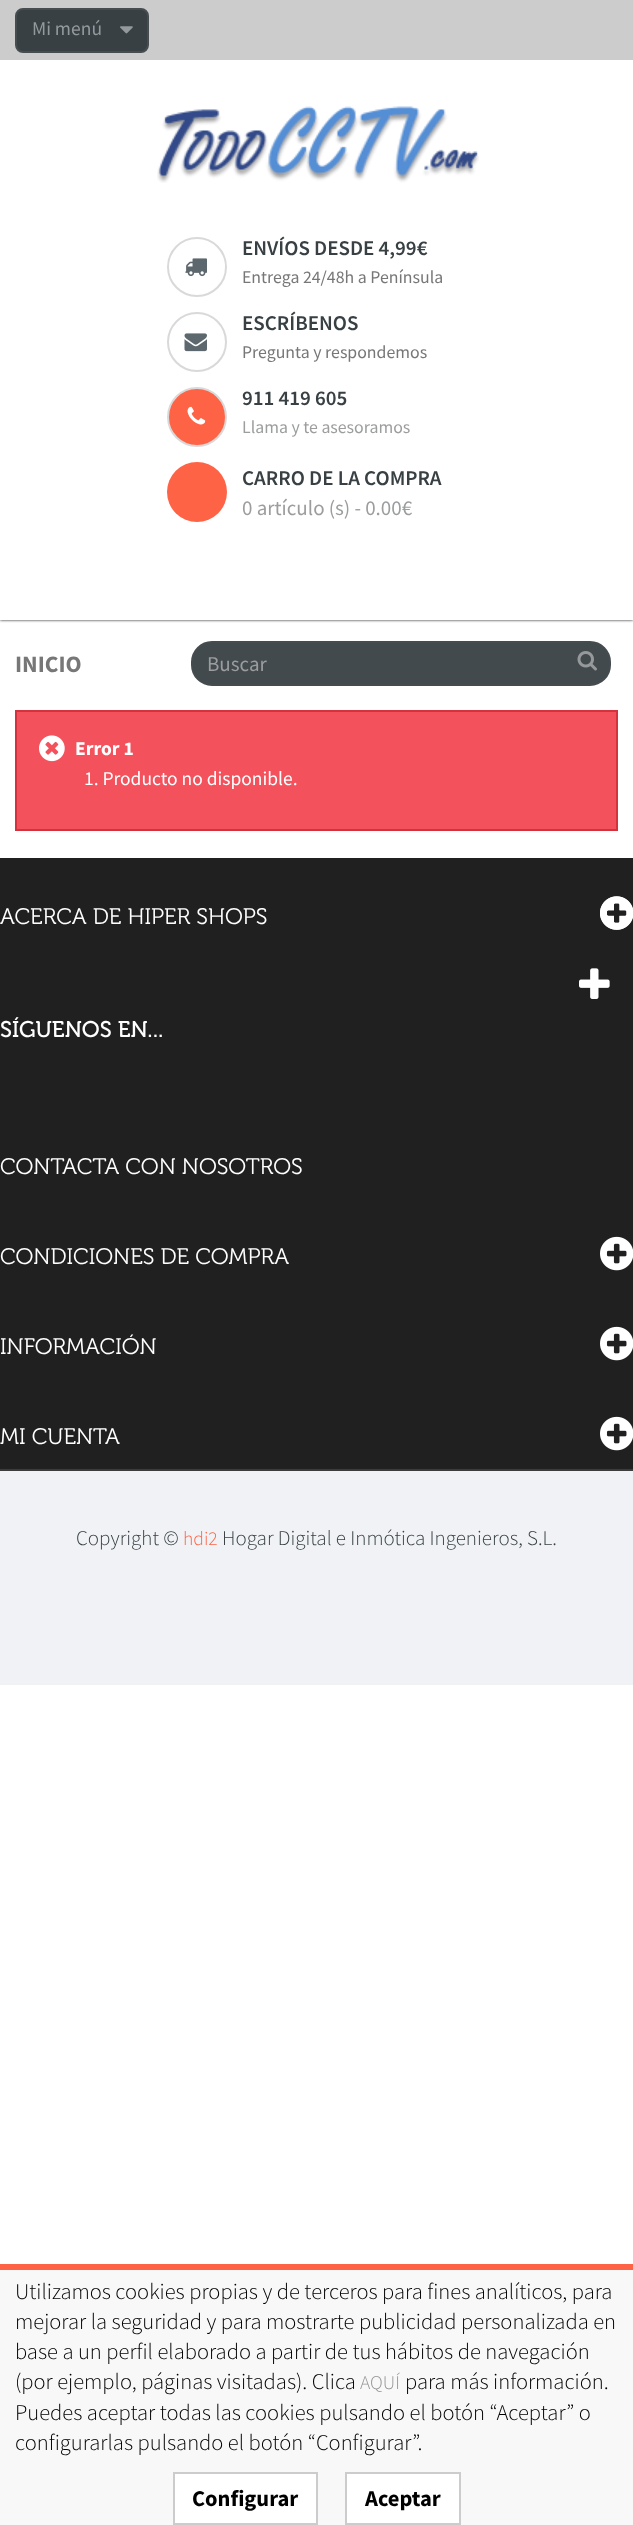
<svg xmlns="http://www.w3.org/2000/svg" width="633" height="2525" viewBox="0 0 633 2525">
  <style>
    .t1 { font: 19.5px Source Sans Pro; fill: #93999d; }
    .t2 { font: 600 21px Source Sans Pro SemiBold; fill: #384044; }
    .t3 { font: 17.8px Source Sans Pro; fill: #777; }
    .t4 { font: 17.8px Source Sans Pro; fill: #9b9d9e; }
    .t5 { font: 21px Source Sans Pro; fill: #9b9d9e; }
    .t6 { font: bold 23.5px Source Sans Pro; fill: #777; }
    .t7 { font: bold 19.5px Source Sans Pro; fill: #fff; }
    .t8 { font: 19.5px Source Sans Pro; fill: #fff; }
    .t9 { font: 22.5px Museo; fill: #fff; }
    .t10 { font: 22.5px 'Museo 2'; fill: #fff; }
    .t11 { font: 300 22.5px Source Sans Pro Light; fill: #000; }
    .t12 { font: 300 19.5px Source Sans Pro Light; fill: #949595; }
    .t13 { font: bold 22.5px Source Sans Pro; fill: #000; }
    .t14 { font: 300 21px Source Sans Pro Light; fill: #384044; }
    .t15 { font: 300 19.5px Source Sans Pro Light; fill: #ff6346; }
  </style>
  <rect width="100%" height="100%" fill="#fff"/>
  <rect x="0" y="0" width="633" height="620" fill="#121212" filter="blur(1.5px)"/>
  <rect x="0" y="60" width="633" height="560" fill="#fff"/>
  <rect x="0" y="0" width="633" height="60" fill="#ccc"/>
  <rect x="16" y="9" width="132" height="43" rx="7" fill="#394044" stroke="#454d50" stroke-width="2"/>
  <text x="32" y="35" class="t1">Mi menú</text>
  <image x="120" y="26" width="13" height="8" href="images/1.png"/>
  <image x="157" y="106" width="322" height="77" href="images/2.png"/>
  <circle cx="197" cy="267" r="29" fill="none" stroke="#d9d9d9" stroke-width="2"/>
  <image x="185" y="258" width="22" height="19" href="images/3.png"/>
  <text x="242" y="255" class="t2">ENVÍOS DESDE 4,99€</text>
  <text x="242" y="283" class="t3">Entrega 24/48h a Península</text>
  <circle cx="197" cy="342" r="29" fill="none" stroke="#d9d9d9" stroke-width="2"/>
  <image x="184" y="333" width="23" height="19" href="images/4.png"/>
  <text x="242" y="330" class="t2">ESCRÍBENOS</text>
  <text x="242" y="358" class="t3">Pregunta y respondemos</text>
  <circle cx="197" cy="417" r="29" fill="#ff6346" stroke="#d9d9d9" stroke-width="2"/>
  <image x="187" y="406" width="19" height="19" href="images/5.png"/>
  <text x="242" y="405" class="t2">911 419 605</text>
  <text x="242" y="433" class="t4">Llama y te asesoramos</text>
  <circle cx="197" cy="492" r="30" fill="#ff6346"/>
  <text x="242" y="485" class="t2">CARRO DE LA COMPRA</text>
  <text x="242" y="515" class="t5">0 artículo (s) - 0.00€</text>
  <rect x="192" y="642" width="418" height="43" rx="20" fill="#434a4e" stroke="#454c50" stroke-width="2"/>
  <text x="207" y="671" class="t5">Buscar</text>
  <image x="577" y="651" width="20" height="20" href="images/6.png"/>
  <text x="15" y="672" class="t6">INICIO</text>
  <rect x="16" y="711" width="601" height="119" fill="#f3515c" stroke="#d4323d" stroke-width="2"/>
  <image x="39" y="735" width="26" height="27" href="images/7.png"/>
  <text x="75" y="755" class="t7">Error 1</text>
  <text x="84" y="785" class="t8">1. Producto no disponible.</text>
  <rect x="0" y="858" width="633" height="611" fill="#202020"/>
  <text x="0" y="924" class="t9">ACERCA DE HIPER SHOPS</text>
  <image x="600" y="896" width="33" height="34" href="images/8.png"/>
  <image x="579" y="968" width="31" height="31" href="images/9.png"/>
  <text x="0" y="1037" class="t10">SÍGUENOS EN...</text>
  <image x="600" y="896" width="33" height="34" href="images/10.png"/>
  <text x="0" y="1174" class="t9">CONTACTA CON NOSOTROS</text>
  <text x="0" y="1264" class="t9">CONDICIONES DE COMPRA</text>
  <image x="600" y="1236" width="33" height="35" href="images/11.png"/>
  <text x="0" y="1354" class="t9">INFORMACIÓN</text>
  <image x="600" y="1326" width="33" height="35" href="images/11.png"/>
  <text x="0" y="1444" class="t9">MI CUENTA</text>
  <image x="600" y="1416" width="33" height="35" href="images/11.png"/>
  <rect x="0" y="2270" width="633" height="255" fill="#f8f8f8"/>
  <rect x="0" y="2264" width="633" height="6" fill="#ff6346"/>
  <text x="15" y="2299" class="t11">Utilizamos cookies propias y de terceros para fines analíticos, para</text>
  <text x="15" y="2329" class="t11">mejorar la seguridad y para mostrarte publicidad personalizada en</text>
  <text x="15" y="2359" class="t11">base a un perfil elaborado a partir de tus hábitos de navegación</text>
  <text x="15" y="2389" class="t11">(por ejemplo, páginas visitadas). Clica</text>
  <text x="360" y="2389" class="t12">AQUÍ</text>
  <text x="405" y="2389" class="t11">para más información.</text>
  <text x="15" y="2420" class="t11">Puedes aceptar todas las cookies pulsando el botón “Aceptar” o</text>
  <text x="15" y="2450" class="t11">configurarlas pulsando el botón “Configurar”.</text>
  <rect x="174" y="2473" width="143" height="51" fill="#fff" stroke="#ccc" stroke-width="2"/>
  <text x="192" y="2506" class="t13">Configurar</text>
  <rect x="346" y="2473" width="114" height="51" fill="#fff" stroke="#ccc" stroke-width="2"/>
  <text x="365" y="2506" class="t13">Aceptar</text>
  <rect x="0" y="1471" width="633" height="214" fill="#f0f2f5"/>
  <rect x="0" y="1469" width="633" height="2" fill="#3c3c3c"/>
  <text x="76" y="1545" class="t14">Copyright ©</text>
  <text x="183" y="1545" class="t15">hdi2</text>
  <text x="222" y="1545" class="t14">Hogar Digital e Inmótica Ingenieros, S.L.</text>
</svg>
